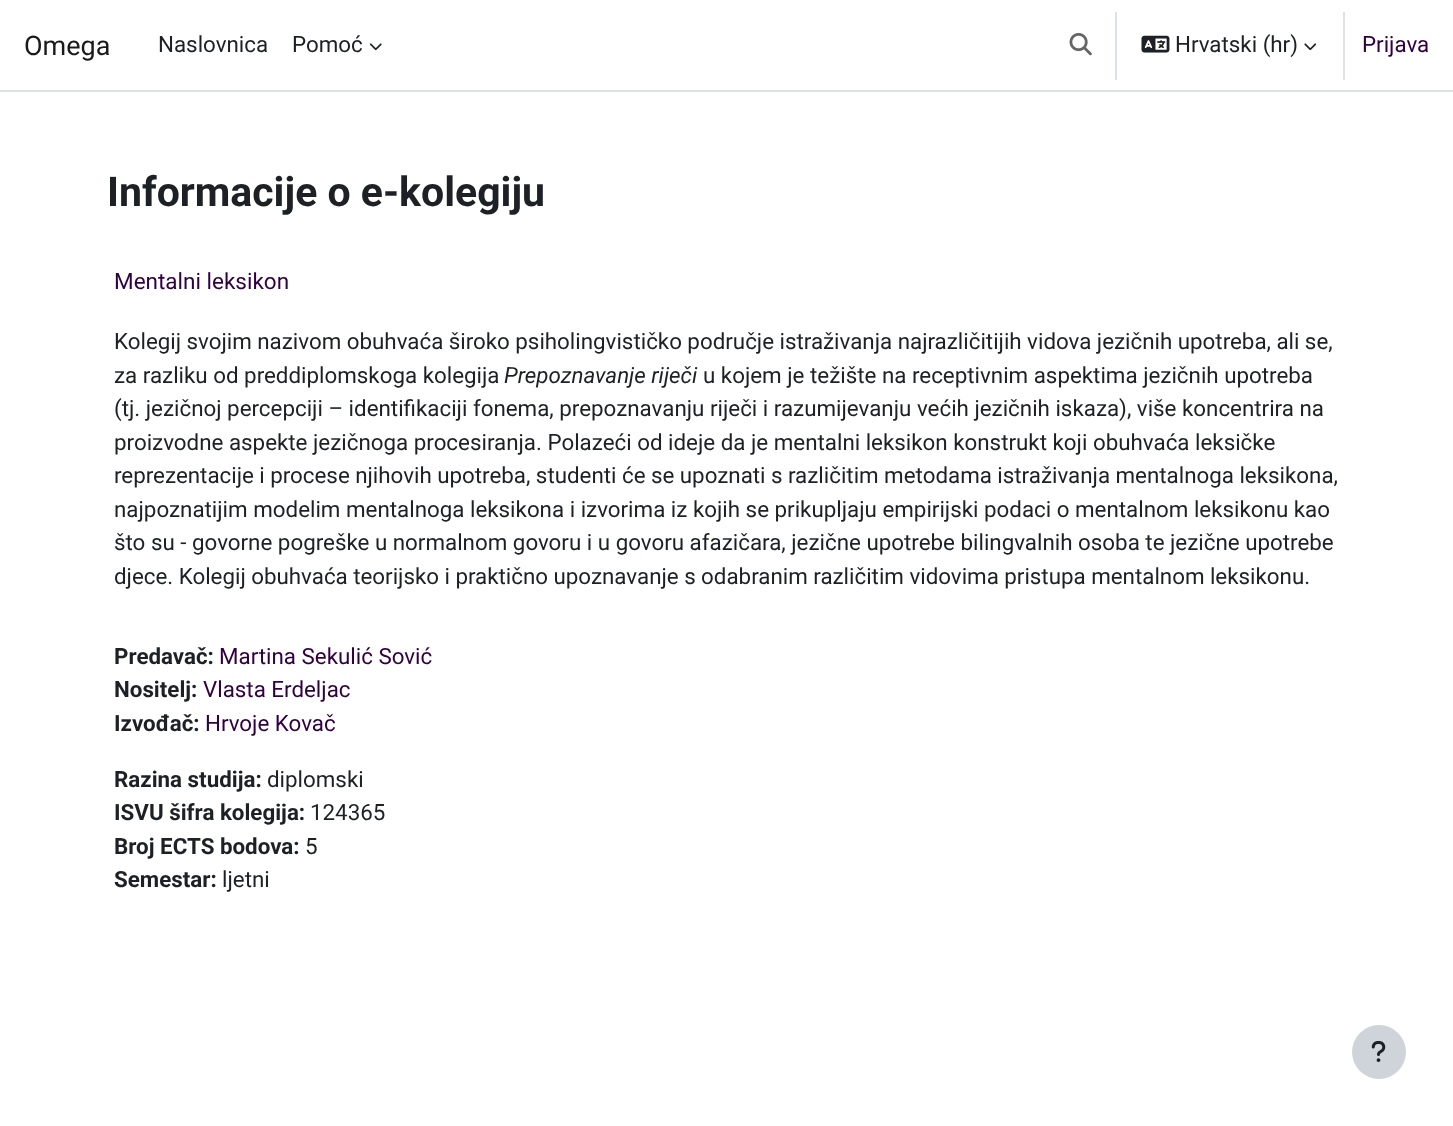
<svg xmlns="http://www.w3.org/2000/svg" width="1453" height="1126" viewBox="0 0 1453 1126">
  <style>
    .t1 { font: 27px Roboto; fill: #1a1a1a; }
    .t2 { font: 22.35px Roboto; fill: #1d2125; }
    .t3 { font: 22.35px Roboto; fill: #310041; }
    .t4 { font: bold 41px Roboto; fill: #1d2125; }
    .t5 { font: 22.5px Roboto; fill: #310041; }
    .t6 { font: italic 22.35px Roboto; fill: #1d2125; }
    .t7 { font: bold 22.35px Roboto; fill: #1d2125; }
  </style>
  <rect width="100%" height="100%" fill="#fff"/>
  <rect x="0" y="90" width="1453" height="2" fill="#dee2e6"/>
  <text x="24" y="55" class="t1">Omega</text>
  <text x="158" y="52" class="t2">Naslovnica</text>
  <text x="292" y="52" class="t2">Pomoć</text>
  <image x="369" y="43" width="13" height="8" href="images/1.png"/>
  <image x="1069" y="33" width="23" height="23" href="images/2.png"/>
  <rect x="1115" y="12" width="2" height="68" fill="#dee2e6"/>
  <image x="1141" y="35" width="29" height="18" href="images/3.png"/>
  <text x="1175" y="52" class="t2">Hrvatski (hr)</text>
  <image x="1304" y="43" width="13" height="8" href="images/4.png"/>
  <rect x="1343" y="12" width="2" height="68" fill="#dee2e6"/>
  <text x="1362" y="52" class="t3">Prijava</text>
  <text x="107" y="206" class="t4">Informacije o e-kolegiju</text>
  <text x="114" y="289" class="t5">Mentalni leksikon</text>
  <text x="114" y="349" word-spacing="-0.1" class="t2">Kolegij svojim nazivom obuhvaća široko psiholingvističko područje istraživanja najrazličitijih vidova jezičnih upotreba, ali se,</text>
  <text x="114" y="383" class="t2">za razliku od preddiplomskoga kolegija</text>
  <text x="504" y="383" class="t6">Prepoznavanje riječi</text>
  <text x="703" y="383" class="t2">u kojem je težište na receptivnim aspektima jezičnih upotreba</text>
  <text x="114" y="416" class="t2">(tj. jezičnoj percepciji – identifikaciji fonema, prepoznavanju riječi i razumijevanju većih jezičnih iskaza), više koncentrira na</text>
  <text x="114" y="450" class="t2">proizvodne aspekte jezičnoga procesiranja. Polazeći od ideje da je mentalni leksikon konstrukt koji obuhvaća leksičke</text>
  <text x="114" y="483" word-spacing="-0.1" class="t2">reprezentacije i procese njihovih upotreba, studenti će se upoznati s različitim metodama istraživanja mentalnoga leksikona,</text>
  <text x="114" y="517" class="t2">najpoznatijim modelim mentalnoga leksikona i izvorima iz kojih se prikupljaju empirijski podaci o mentalnom leksikonu kao</text>
  <text x="114" y="550" class="t2">što su - govorne pogreške u normalnom govoru i u govoru afazičara, jezične upotrebe bilingvalnih osoba te jezične upotrebe</text>
  <text x="114" y="584" word-spacing="-0.1" class="t2">djece. Kolegij obuhvaća teorijsko i praktično upoznavanje s odabranim različitim vidovima pristupa mentalnom leksikonu.</text>
  <text x="114" y="664" class="t7">Predavač:</text>
  <text x="219" y="664" class="t3">Martina Sekulić Sović</text>
  <text x="114" y="697" class="t7">Nositelj:</text>
  <text x="203" y="697" class="t3">Vlasta Erdeljac</text>
  <text x="114" y="731" class="t7">Izvođač:</text>
  <text x="205" y="731" class="t3">Hrvoje Kovač</text>
  <text x="114" y="787" class="t7">Razina studija:</text>
  <text x="267" y="787" class="t2">diplomski</text>
  <text x="114" y="820" class="t7">ISVU šifra kolegija:</text>
  <text x="310" y="820" class="t2">124365</text>
  <text x="114" y="854" class="t7">Broj ECTS bodova:</text>
  <text x="305" y="854" class="t2">5</text>
  <text x="114" y="887" class="t7">Semestar:</text>
  <text x="222" y="887" class="t2">ljetni</text>
  <circle cx="1379" cy="1052" r="27" fill="#ced4da"/>
  <image x="1371" y="1041" width="15" height="21" href="images/5.png"/>
</svg>
